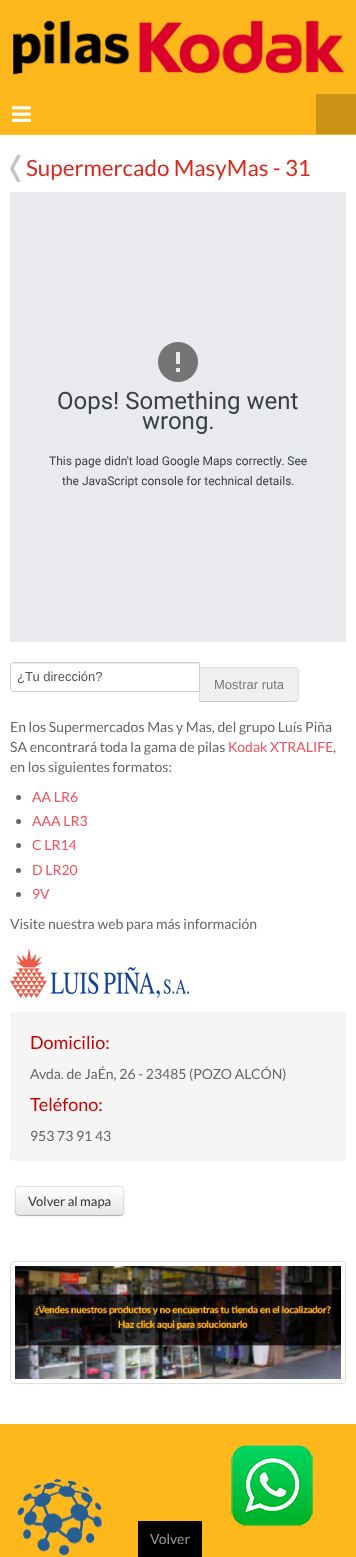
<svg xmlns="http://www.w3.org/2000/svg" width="356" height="1557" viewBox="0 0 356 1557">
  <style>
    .t1 { font: 22.4px Lato; fill: #da291c; }
    .t2 { font: 24px Roboto; fill: #3c4043; }
    .t3 { font: 12px Roboto; fill: #3c4043; }
    .t4 { font: 13px Liberation Sans; fill: #555; }
    .t5 { font: 13px Liberation Sans; fill: #7a7a7a; }
    .t6 { font: 14px Lato; fill: #666; }
    .t7 { font: 14px Lato; fill: #f0525b; }
    .t8 { font: 18px Lato; fill: #c00; }
    .t9 { font: 13px Lato; fill: #333; }
    .t10 { font: 14px Lato; fill: #999; }
  </style>
  <defs>
    <clipPath id="clip1"><path d="M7 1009H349V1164H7ZM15 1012H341C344 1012 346 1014 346 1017V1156C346 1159 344 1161 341 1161H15C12 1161 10 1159 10 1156V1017C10 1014 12 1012 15 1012Z" clip-rule="evenodd"/></clipPath>
    <clipPath id="clip2"><rect x="15" y="1186" width="109" height="30" rx="4"/></clipPath>
    <linearGradient id="g1" gradientUnits="userSpaceOnUse" x1="70" y1="1187" x2="70" y2="1215"><stop offset="0" stop-color="#fff"/><stop offset="1" stop-color="#e6e6e6"/></linearGradient>
  </defs>
  <rect width="100%" height="100%" fill="#fff"/>
  <rect x="0" y="0" width="356" height="134" fill="#ffb81c"/>
  <rect x="0" y="134" width="356" height="1" fill="#ffbf33"/>
  <image x="13" y="20" width="332" height="55" href="images/1.png"/>
  <image x="12" y="106" width="19" height="16" href="images/2.png"/>
  <rect x="316" y="94" width="40" height="40" fill="#cc9316"/>
  <image x="10" y="155" width="11" height="27" href="images/3.png"/>
  <text x="26" y="176" class="t1">Supermercado MasyMas - 31</text>
  <rect x="10" y="192" width="336" height="450" fill="#e8eaed"/>
  <image x="158" y="342" width="40" height="40" href="images/4.png"/>
  <text x="57" y="409" class="t2">Oops! Something went</text>
  <text x="142" y="429" class="t2">wrong.</text>
  <text x="49" y="465" class="t3">This page didn't load Google Maps correctly. See</text>
  <text x="62" y="485" class="t3">the JavaScript console for technical details.</text>
  <path d="M14 664H199V663H14C12 663 11 665 11 667C11 665 12 664 14 664Z" fill="#ececec"/>
  <path d="M14 662.5H199.5V691.5H14C12 691.5 10.5 690 10.5 688V666C10.5 664 12 662.5 14 662.5Z" fill="none" stroke="#ccc"/>
  <text x="17" y="681" class="t4">¿Tu dirección?</text>
  <path d="M199 667H295C297 667 299 669 299 671V698C299 700 297 702 295 702H199Z" fill="#e6e6e6a6"/>
  <path d="M199 667L200 668H295L297 669L298 668L295 667Z" fill="#5959591a"/>
  <path d="M299 698V671C299 670 298.5 669 298 668L297 669C298 669 298 670 298 671V698C298 699 298 700 297 700L298 701C298.5 700 299 699 299 698Z" fill="#5959591a"/>
  <path d="M295 702L298 701L297 700L295 701H200L199 702Z" fill="#cecece"/>
  <path d="M199 667V702L200 701V668Z" fill="#00000012"/>
  <text x="214" y="689" class="t5">Mostrar ruta</text>
  <text x="10" y="732" class="t6">En los Supermercados Mas y Mas, del grupo Luís Piña</text>
  <text x="10" y="752" class="t6">SA encontrará toda la gama de pilas</text>
  <text x="228" y="752" class="t7">Kodak XTRALIFE</text>
  <text x="333" y="752" class="t6">,</text>
  <text x="10" y="772" class="t6">en los siguientes formatos:</text>
  <circle cx="18.5" cy="797.5" r="2.5" fill="#666"/>
  <text x="32" y="802" class="t7">AA LR6</text>
  <circle cx="18.5" cy="821.5" r="2.5" fill="#666"/>
  <text x="32" y="826" class="t7">AAA LR3</text>
  <circle cx="18.5" cy="845.5" r="2.5" fill="#666"/>
  <text x="32" y="850" class="t7">C LR14</text>
  <circle cx="18.5" cy="870.5" r="2.5" fill="#666"/>
  <text x="32" y="875" class="t7">D LR20</text>
  <circle cx="18.5" cy="894.5" r="2.5" fill="#666"/>
  <text x="32" y="899" class="t7">9V</text>
  <text x="10" y="929" class="t6">Visite nuestra web para más información</text>
  <image x="10" y="949" width="179" height="49" href="images/5.png"/>
  <g clip-path="url(#clip1)">
    <rect x="10" y="1012" width="336" height="149" rx="5" fill="#0000006e" filter="blur(0.5px)"/>
  </g>
  <rect x="10" y="1012" width="336" height="149" rx="5" fill="#80808014"/>
  <text x="30" y="1049" class="t8">Domicilio:</text>
  <text x="30" y="1079" class="t6">Avda. de JaÉn, 26 - 23485 (POZO ALCÓN)</text>
  <text x="30" y="1111" class="t8">Teléfono:</text>
  <text x="30" y="1141" class="t6">953 73 91 43</text>
  <rect x="15" y="1187" width="109" height="30" rx="4" fill="#0000000d" filter="blur(1px)"/>
  <rect x="15" y="1186" width="109" height="30" rx="4" fill="#f5f5f5"/>
  <g clip-path="url(#clip2)">
    <rect x="15" y="1187" width="109" height="28" fill="url(#g1)"/>
  </g>
  <path d="M122.5 1214.5L120.5 1215.5H36H19L16.5 1214.5" fill="none" stroke="#b3b3b3"/>
  <path d="M16.5 1214.5C14 1212 15.5 1207.5 15.5 1204.5C15.5 1182.5 12 1186.5 36 1186.5H103C127 1186.5 123.5 1182.5 123.5 1204.5C123.5 1207.5 125 1212 122.5 1214.5" fill="none" stroke="#0000001a"/>
  <text x="28" y="1206" class="t9">Volver al mapa</text>
  <rect x="10.5" y="1261.5" width="335" height="122" rx="3.5" fill="none" stroke="#ddd"/>
  <image x="15" y="1266" width="326" height="113" href="images/6.png"/>
  <rect x="0" y="1424" width="356" height="133" fill="#ffb81c"/>
  <image x="17" y="1479" width="85" height="77" href="images/7.png"/>
  <image x="231" y="1445" width="82" height="81" href="images/8.png"/>
  <rect x="138" y="1521" width="64" height="36" fill="#000"/>
  <text x="150" y="1544" class="t10">Volver</text>
</svg>
